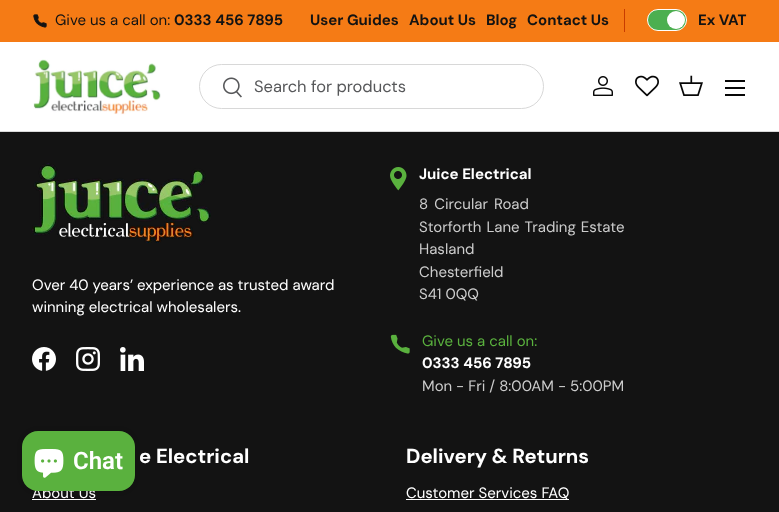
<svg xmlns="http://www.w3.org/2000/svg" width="779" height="512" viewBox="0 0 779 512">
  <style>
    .t1 { font: 15px DM Sans; fill: #131313; }
    .t2 { font: bold 15px DM Sans; fill: #131313; }
    .t3 { font: 16.5px 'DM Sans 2'; fill: #57585a; }
    .t4 { font: 15px DM Sans; fill: #fff; }
    .t5 { font: bold 15px DM Sans; fill: #fff; }
    .t6 { font: 15px DM Sans; fill: #ccc; }
    .t7 { font: 15px DM Sans; fill: #5ab13e; }
    .t8 { font: bold 20.25px 'DM Sans 2'; fill: #fff; }
    .t9 { font: 600 24px Roboto; fill: #fff; }
  </style>
  <rect width="100%" height="100%" fill="#131313"/>
  <rect x="0" y="0" width="779" height="42" fill="#f57b15"/>
  <image x="33" y="14" width="14" height="14" href="images/1.png"/>
  <text x="55" y="25" class="t1">Give us a call on:</text>
  <text x="174" y="25" class="t2">0333 456 7895</text>
  <rect x="624" y="9" width="1" height="23" fill="#c83c00"/>
  <text x="310" y="25" class="t2">User Guides</text>
  <text x="409" y="25" class="t2">About Us</text>
  <text x="486" y="25" class="t2">Blog</text>
  <text x="527" y="25" class="t2">Contact Us</text>
  <rect x="647.5" y="9.5" width="39" height="21" rx="10.5" fill="#4caf50" stroke="#fff"/>
  <circle cx="676" cy="20" r="9" fill="#fff"/>
  <text x="698" y="25" class="t2">Ex VAT</text>
  <rect x="0" y="42" width="779" height="89" fill="#fff"/>
  <rect x="0" y="131" width="779" height="1" fill="#dadada"/>
  <image x="33" y="59" width="128" height="56" href="images/2.png"/>
  <rect x="199.5" y="64.5" width="344" height="44" rx="22" fill="none" stroke="#d8d8d8"/>
  <image x="223" y="77" width="19" height="21" href="images/3.png"/>
  <text x="254" y="92" class="t3">Search for products</text>
  <image x="593" y="76" width="20" height="20" href="images/4.png"/>
  <image x="635" y="75" width="24" height="22" href="images/5.png"/>
  <image x="679" y="75" width="24" height="21" href="images/6.png"/>
  <rect x="725" y="80" width="20" height="2" fill="#070707"/>
  <rect x="725" y="94" width="20" height="2" fill="#070707"/>
  <rect x="725" y="87" width="20" height="2" fill="#070707"/>
  <image x="32" y="163" width="179" height="80" href="images/7.png"/>
  <text x="32" y="290" class="t4">Over 40 years’ experience as trusted award</text>
  <text x="32" y="312" class="t4">winning electrical wholesalers.</text>
  <image x="32" y="347" width="24" height="24" href="images/8.png"/>
  <image x="76" y="347" width="24" height="24" href="images/9.png"/>
  <image x="120" y="347" width="24" height="24" href="images/10.png"/>
  <image x="390" y="167" width="17" height="24" href="images/11.png"/>
  <text x="419" y="179" class="t5">Juice Electrical</text>
  <text x="419" y="209" word-spacing="2" class="t6">8 Circular Road</text>
  <text x="419" y="232" word-spacing="1" class="t6">Storforth Lane Trading Estate</text>
  <text x="419" y="254" class="t6">Hasland</text>
  <text x="419" y="277" class="t6">Chesterfield</text>
  <text x="419" y="299" class="t6">S41 0QQ</text>
  <image x="390" y="334" width="20" height="20" href="images/12.png"/>
  <text x="422" y="346" class="t7">Give us a call on:</text>
  <text x="422" y="368" class="t5">0333 456 7895</text>
  <text x="422" y="391" class="t6">Mon - Fri / 8:00AM - 5:00PM</text>
  <text x="139" y="463" class="t8">e Electrical</text>
  <text x="32" y="498" class="t4">About Us</text>
  <rect x="32" y="499" width="64" height="1" fill="#fff"/>
  <text x="406" y="463" class="t8">Delivery &amp; Returns</text>
  <rect x="406" y="499" width="163" height="1" fill="#fff"/>
  <text x="406" y="498" class="t4">Customer Services FAQ</text>
  <rect x="22" y="431" width="113" height="60" rx="16" fill="#00000026" filter="blur(2.5px)"/>
  <rect x="22" y="431" width="113" height="60" rx="16" fill="#5ab13e"/>
  <image x="34" y="449" width="30" height="29" href="images/13.png"/>
  <text x="73" y="469" class="t9">Chat</text>
</svg>
